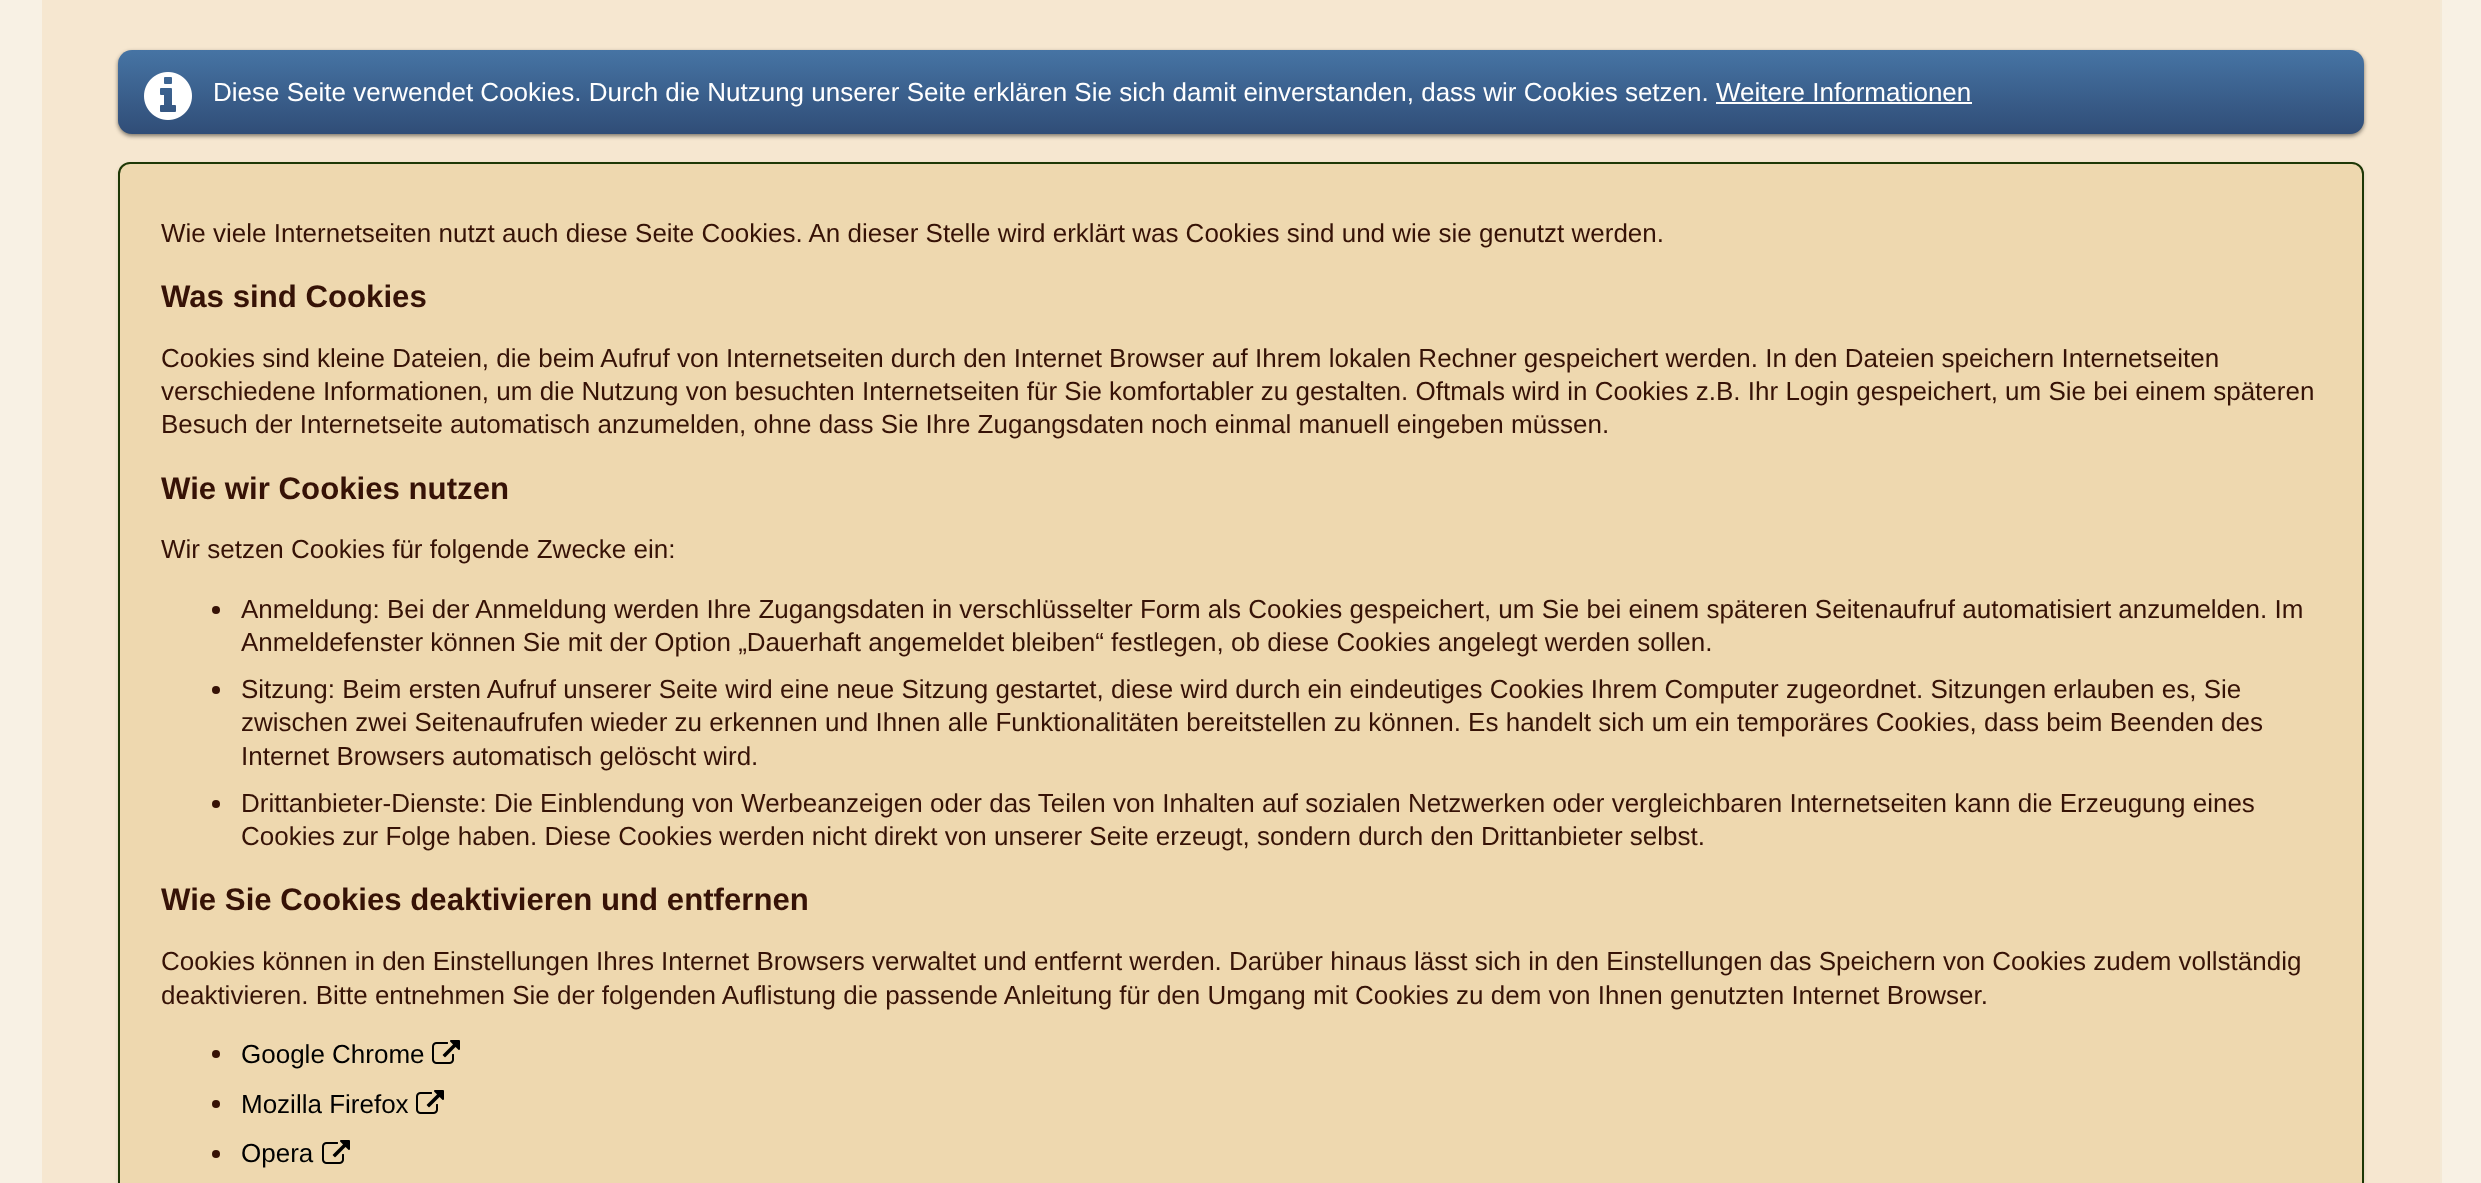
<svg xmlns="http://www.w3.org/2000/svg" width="2481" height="1183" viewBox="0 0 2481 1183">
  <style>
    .t1 { font: 26px Liberation Sans; fill: #fff; }
    .t2 { font: 26px Liberation Sans; fill: #361206; }
    .t3 { font: bold 31.2px Liberation Sans; fill: #361206; }
    .t4 { font: 26px Liberation Sans; fill: #000; }
  </style>
  <defs>
    <linearGradient id="g1" gradientUnits="userSpaceOnUse" x1="1241" y1="50" x2="1241" y2="134"><stop offset="0" stop-color="#4674a4"/><stop offset="1" stop-color="#304d77"/></linearGradient>
  </defs>
  <rect width="100%" height="100%" fill="#f8f1e4"/>
  <rect x="2440" y="0" width="2" height="1183" fill="#f4e9d5"/>
  <rect x="42" y="0" width="2398" height="1183" fill="#f6e7d0"/>
  <rect x="118" y="52" width="2246" height="84" rx="14" fill="#00000080" filter="blur(2px)"/>
  <rect x="118" y="50" width="2246" height="84" rx="14" fill="url(#g1)"/>
  <image x="144" y="72" width="48" height="48" href="images/1.png"/>
  <text x="213" y="101" class="t1">Diese Seite verwendet Cookies. Durch die Nutzung unserer Seite erklären Sie sich damit einverstanden, dass wir Cookies setzen. Weitere Informationen</text>
  <rect x="1716" y="102" width="256" height="2" fill="#fff"/>
  <rect x="118" y="164" width="2246" height="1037" rx="12" fill="#0000001a" filter="blur(2px)"/>
  <rect x="119" y="163" width="2244" height="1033" rx="11" fill="#eed8af" stroke="#1d3705" stroke-width="2"/>
  <text x="161" y="242" class="t2">Wie viele Internetseiten nutzt auch diese Seite Cookies. An dieser Stelle wird erklärt was Cookies sind und wie sie genutzt werden.</text>
  <text x="161" y="307" class="t3">Was sind Cookies</text>
  <text x="161" y="367" class="t2">Cookies sind kleine Dateien, die beim Aufruf von Internetseiten durch den Internet Browser auf Ihrem lokalen Rechner gespeichert werden. In den Dateien speichern Internetseiten</text>
  <text x="161" y="400" class="t2">verschiedene Informationen, um die Nutzung von besuchten Internetseiten für Sie komfortabler zu gestalten. Oftmals wird in Cookies z.B. Ihr Login gespeichert, um Sie bei einem späteren</text>
  <text x="161" y="433" class="t2">Besuch der Internetseite automatisch anzumelden, ohne dass Sie Ihre Zugangsdaten noch einmal manuell eingeben müssen.</text>
  <text x="161" y="499" class="t3">Wie wir Cookies nutzen</text>
  <text x="161" y="558" class="t2">Wir setzen Cookies für folgende Zwecke ein:</text>
  <circle cx="216" cy="610" r="4" fill="#361206"/>
  <text x="241" y="618" class="t2">Anmeldung: Bei der Anmeldung werden Ihre Zugangsdaten in verschlüsselter Form als Cookies gespeichert, um Sie bei einem späteren Seitenaufruf automatisiert anzumelden. Im</text>
  <text x="241" y="651" class="t2">Anmeldefenster können Sie mit der Option „Dauerhaft angemeldet bleiben“ festlegen, ob diese Cookies angelegt werden sollen.</text>
  <circle cx="216" cy="690" r="4" fill="#361206"/>
  <text x="241" y="698" class="t2">Sitzung: Beim ersten Aufruf unserer Seite wird eine neue Sitzung gestartet, diese wird durch ein eindeutiges Cookies Ihrem Computer zugeordnet. Sitzungen erlauben es, Sie</text>
  <text x="241" y="731" class="t2">zwischen zwei Seitenaufrufen wieder zu erkennen und Ihnen alle Funktionalitäten bereitstellen zu können. Es handelt sich um ein temporäres Cookies, dass beim Beenden des</text>
  <text x="241" y="765" class="t2">Internet Browsers automatisch gelöscht wird.</text>
  <circle cx="216" cy="804" r="4" fill="#361206"/>
  <text x="241" y="812" class="t2">Drittanbieter-Dienste: Die Einblendung von Werbeanzeigen oder das Teilen von Inhalten auf sozialen Netzwerken oder vergleichbaren Internetseiten kann die Erzeugung eines</text>
  <text x="241" y="845" class="t2">Cookies zur Folge haben. Diese Cookies werden nicht direkt von unserer Seite erzeugt, sondern durch den Drittanbieter selbst.</text>
  <text x="161" y="910" class="t3">Wie Sie Cookies deaktivieren und entfernen</text>
  <text x="161" y="970" class="t2">Cookies können in den Einstellungen Ihres Internet Browsers verwaltet und entfernt werden. Darüber hinaus lässt sich in den Einstellungen das Speichern von Cookies zudem vollständig</text>
  <text x="161" y="1004" class="t2">deaktivieren. Bitte entnehmen Sie der folgenden Auflistung die passende Anleitung für den Umgang mit Cookies zu dem von Ihnen genutzten Internet Browser.</text>
  <circle cx="216" cy="1054" r="4" fill="#361206"/>
  <text x="241" y="1063" class="t4">Google Chrome</text>
  <image x="432" y="1040" width="28" height="24" href="images/2.png"/>
  <circle cx="216" cy="1104" r="4" fill="#361206"/>
  <text x="241" y="1113" class="t4">Mozilla Firefox</text>
  <image x="416" y="1090" width="28" height="24" href="images/2.png"/>
  <circle cx="216" cy="1154" r="4" fill="#361206"/>
  <text x="241" y="1162" class="t4">Opera</text>
  <image x="322" y="1140" width="28" height="24" href="images/2.png"/>
</svg>
